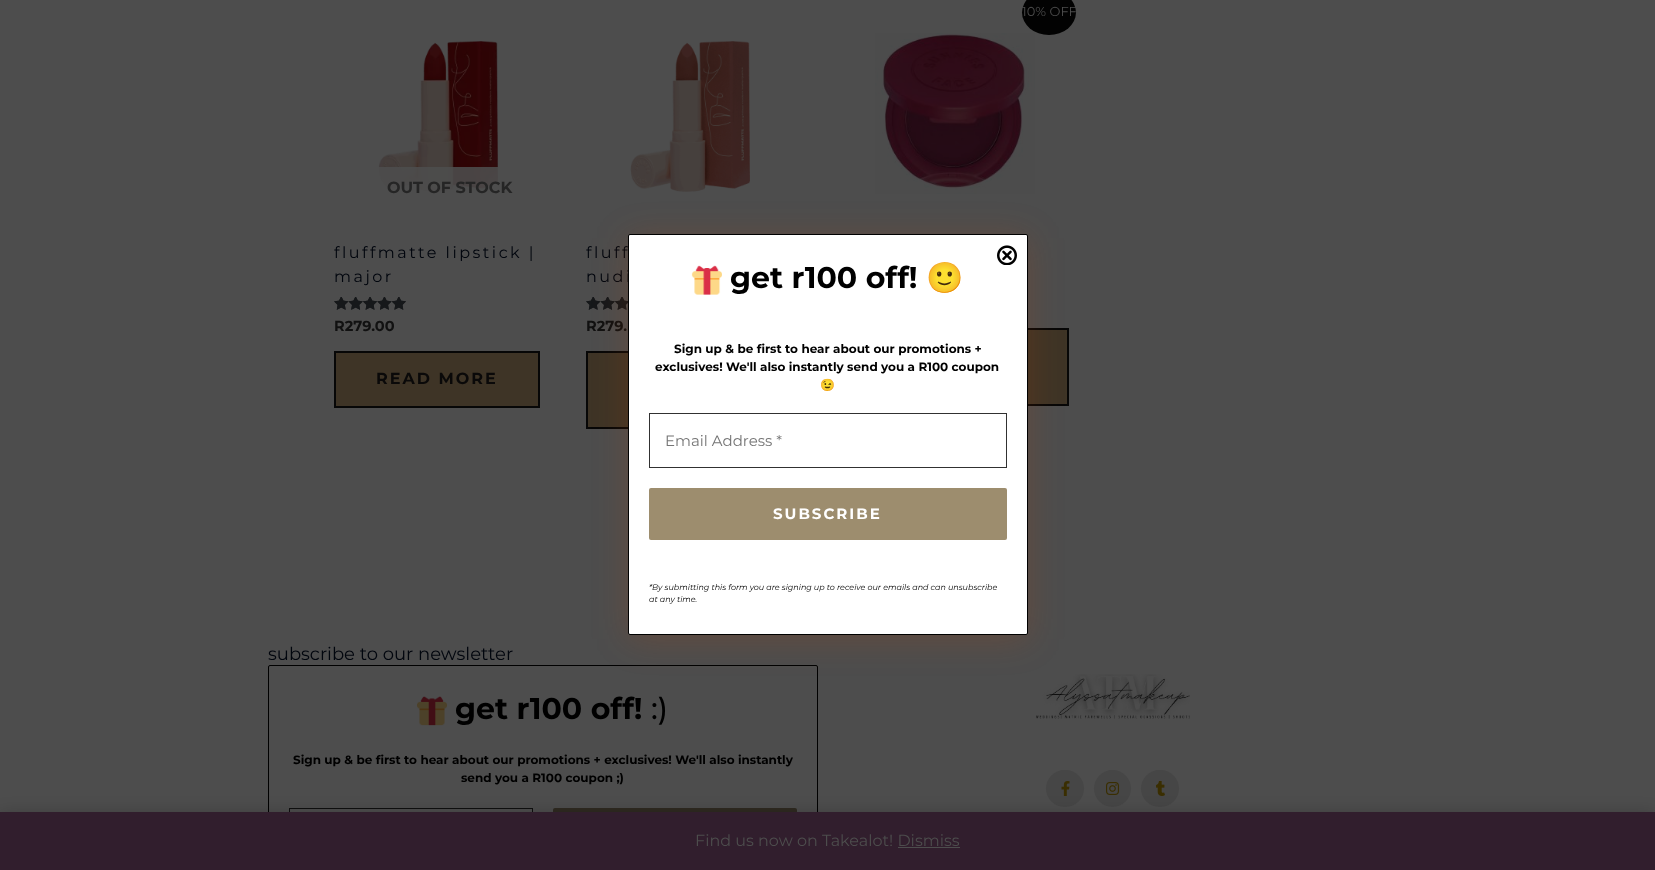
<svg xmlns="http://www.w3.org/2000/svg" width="1655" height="870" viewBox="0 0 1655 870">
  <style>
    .t1 { font: 13px Montserrat; fill: #4d4d4d; }
    .t2 { font: bold 16px Montserrat; fill: #252525; }
    .t3 { font: 16px Montserrat; letter-spacing: 2.5px; fill: #00050d; }
    .t4 { font: bold 14.5px Montserrat; fill: #111; }
    .t5 { font: bold 16px Montserrat; letter-spacing: 2px; fill: #0a0909; }
    .t6 { font: bold 30px Montserrat; fill: #000; }
    .t7 { font: 30px Noto Color Emoji; fill: #000; }
    .t8 { font: bold 12px Montserrat; fill: #000; }
    .t9 { font: bold 12px Noto Color Emoji; fill: #000; }
    .t10 { font: 15px Montserrat; fill: #757575; }
    .t11 { font: bold 15px Montserrat; letter-spacing: 2px; fill: #fff; }
    .t12 { font: italic 8px Montserrat; fill: #000; }
    .t13 { font: 18px Montserrat; fill: #00050d; }
    .t14 { font: 500 30px Montserrat; fill: #000; }
    .t15 { font: 16px Montserrat; fill: #4d4d4d; }
  </style>
  <rect width="100%" height="100%" fill="#4d4d4d"/>
  <image x="875" y="33" width="160" height="161" href="images/1.png"/>
  <ellipse cx="1049" cy="12.5" rx="27" ry="22.5" fill="#020202"/>
  <text x="1022" y="16" class="t1">10% OFF</text>
  <rect x="1028" y="330" width="39" height="74" fill="#3e3426"/>
  <rect x="839" y="329" width="229" height="76" fill="none" stroke="#070707" stroke-width="2"/>
  <image x="378" y="41" width="120" height="151" href="images/2.png"/>
  <rect x="378" y="167" width="120" height="25" fill="#4d4d4de0"/>
  <text x="387" y="193" class="t2">OUT OF STOCK</text>
  <text x="334" y="258" class="t3">fluffmatte lipstick |</text>
  <text x="334" y="282" class="t3">major</text>
  <image x="334" y="297" width="72" height="13" href="images/3.png"/>
  <image x="334" y="297" width="72" height="13" href="images/4.png"/>
  <text x="334" y="331" class="t4">R279.00</text>
  <rect x="335" y="352" width="204" height="55" fill="#3e3426" stroke="#070707" stroke-width="2"/>
  <text x="376" y="384" class="t5">READ MORE</text>
  <image x="630" y="41" width="120" height="151" href="images/5.png"/>
  <text x="586" y="258" class="t3">fluff</text>
  <text x="586" y="282" class="t3">nudi</text>
  <image x="586" y="297" width="42" height="13" href="images/6.png"/>
  <image x="586" y="297" width="42" height="13" href="images/7.png"/>
  <text x="586" y="331" class="t4">R279.</text>
  <rect x="588" y="353" width="40" height="74" fill="#3e3426"/>
  <rect x="587" y="352" width="230" height="76" fill="none" stroke="#070707" stroke-width="2"/>
  <rect x="268.5" y="665.5" width="549" height="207" rx="1.5" fill="none" stroke="#000"/>
  <image x="1036" y="674" width="154" height="45" href="images/11.png"/>
  <rect x="628" y="238" width="400" height="401" rx="2" fill="#c3410233" filter="blur(17.5px)"/>
  <rect x="628.5" y="234.5" width="399" height="400" rx="1.5" fill="#fff" stroke="#000"/>
  <image x="997" y="245" width="20" height="20" href="images/8.png"/>
  <image x="691" y="265" width="31" height="30" href="images/9.png"/>
  <text x="730" y="288" class="t6">get r100 off!</text>
  <text x="926" y="288" class="t7">🙂</text>
  <text x="674" y="353" class="t8">Sign up &amp; be first to hear about our promotions +</text>
  <text x="655" y="371" class="t8">exclusives! We'll also instantly send you a R100 coupon</text>
  <text x="820" y="389" class="t9">😉</text>
  <rect x="649.5" y="413.5" width="357" height="54" fill="none" stroke="#313131"/>
  <text x="665" y="446" class="t10">Email Address *</text>
  <rect x="649" y="488" width="358" height="52" rx="2" fill="#9d8d6e"/>
  <text x="773" y="519" class="t11">SUBSCRIBE</text>
  <text x="649" y="590" class="t12">*By submitting this form you are signing up to receive our emails and can unsubscribe</text>
  <text x="649" y="602" class="t12">at any time.</text>
  <text x="268" y="660" class="t13">subscribe to our newsletter</text>
  <image x="417" y="696" width="30" height="30" href="images/10.png"/>
  <text x="455" y="719" class="t6">get r100 off!</text>
  <text x="651" y="719" class="t14">:)</text>
  <text x="293" y="764" class="t8">Sign up &amp; be first to hear about our promotions + exclusives! We'll also instantly</text>
  <text x="461" y="782" class="t8">send you a R100 coupon ;)</text>
  <rect x="289.5" y="808.5" width="243" height="54" fill="none" stroke="#0f0f0f"/>
  <rect x="553" y="808" width="244" height="53" rx="2" fill="#2f2a21"/>
  <rect x="1046" y="770" width="38" height="37" rx="18.5" fill="#464646"/>
  <image x="1061" y="781" width="9" height="15" href="images/12.png"/>
  <circle cx="1112.5" cy="788.5" r="18.5" fill="#464646"/>
  <image x="1106" y="782" width="14" height="13" href="images/13.png"/>
  <rect x="1141" y="770" width="38" height="37" rx="18.5" fill="#464646"/>
  <image x="1156" y="781" width="9" height="15" href="images/14.png"/>
  <rect x="0" y="813" width="1655" height="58" fill="#00000033" filter="blur(8px)"/>
  <rect x="0" y="812" width="1655" height="58" fill="#311e2d"/>
  <text x="695" y="846" class="t15">Find us now on Takealot! Dismiss</text>
  <rect x="898" y="847" width="62" height="1" fill="#4d4d4d"/>
</svg>
